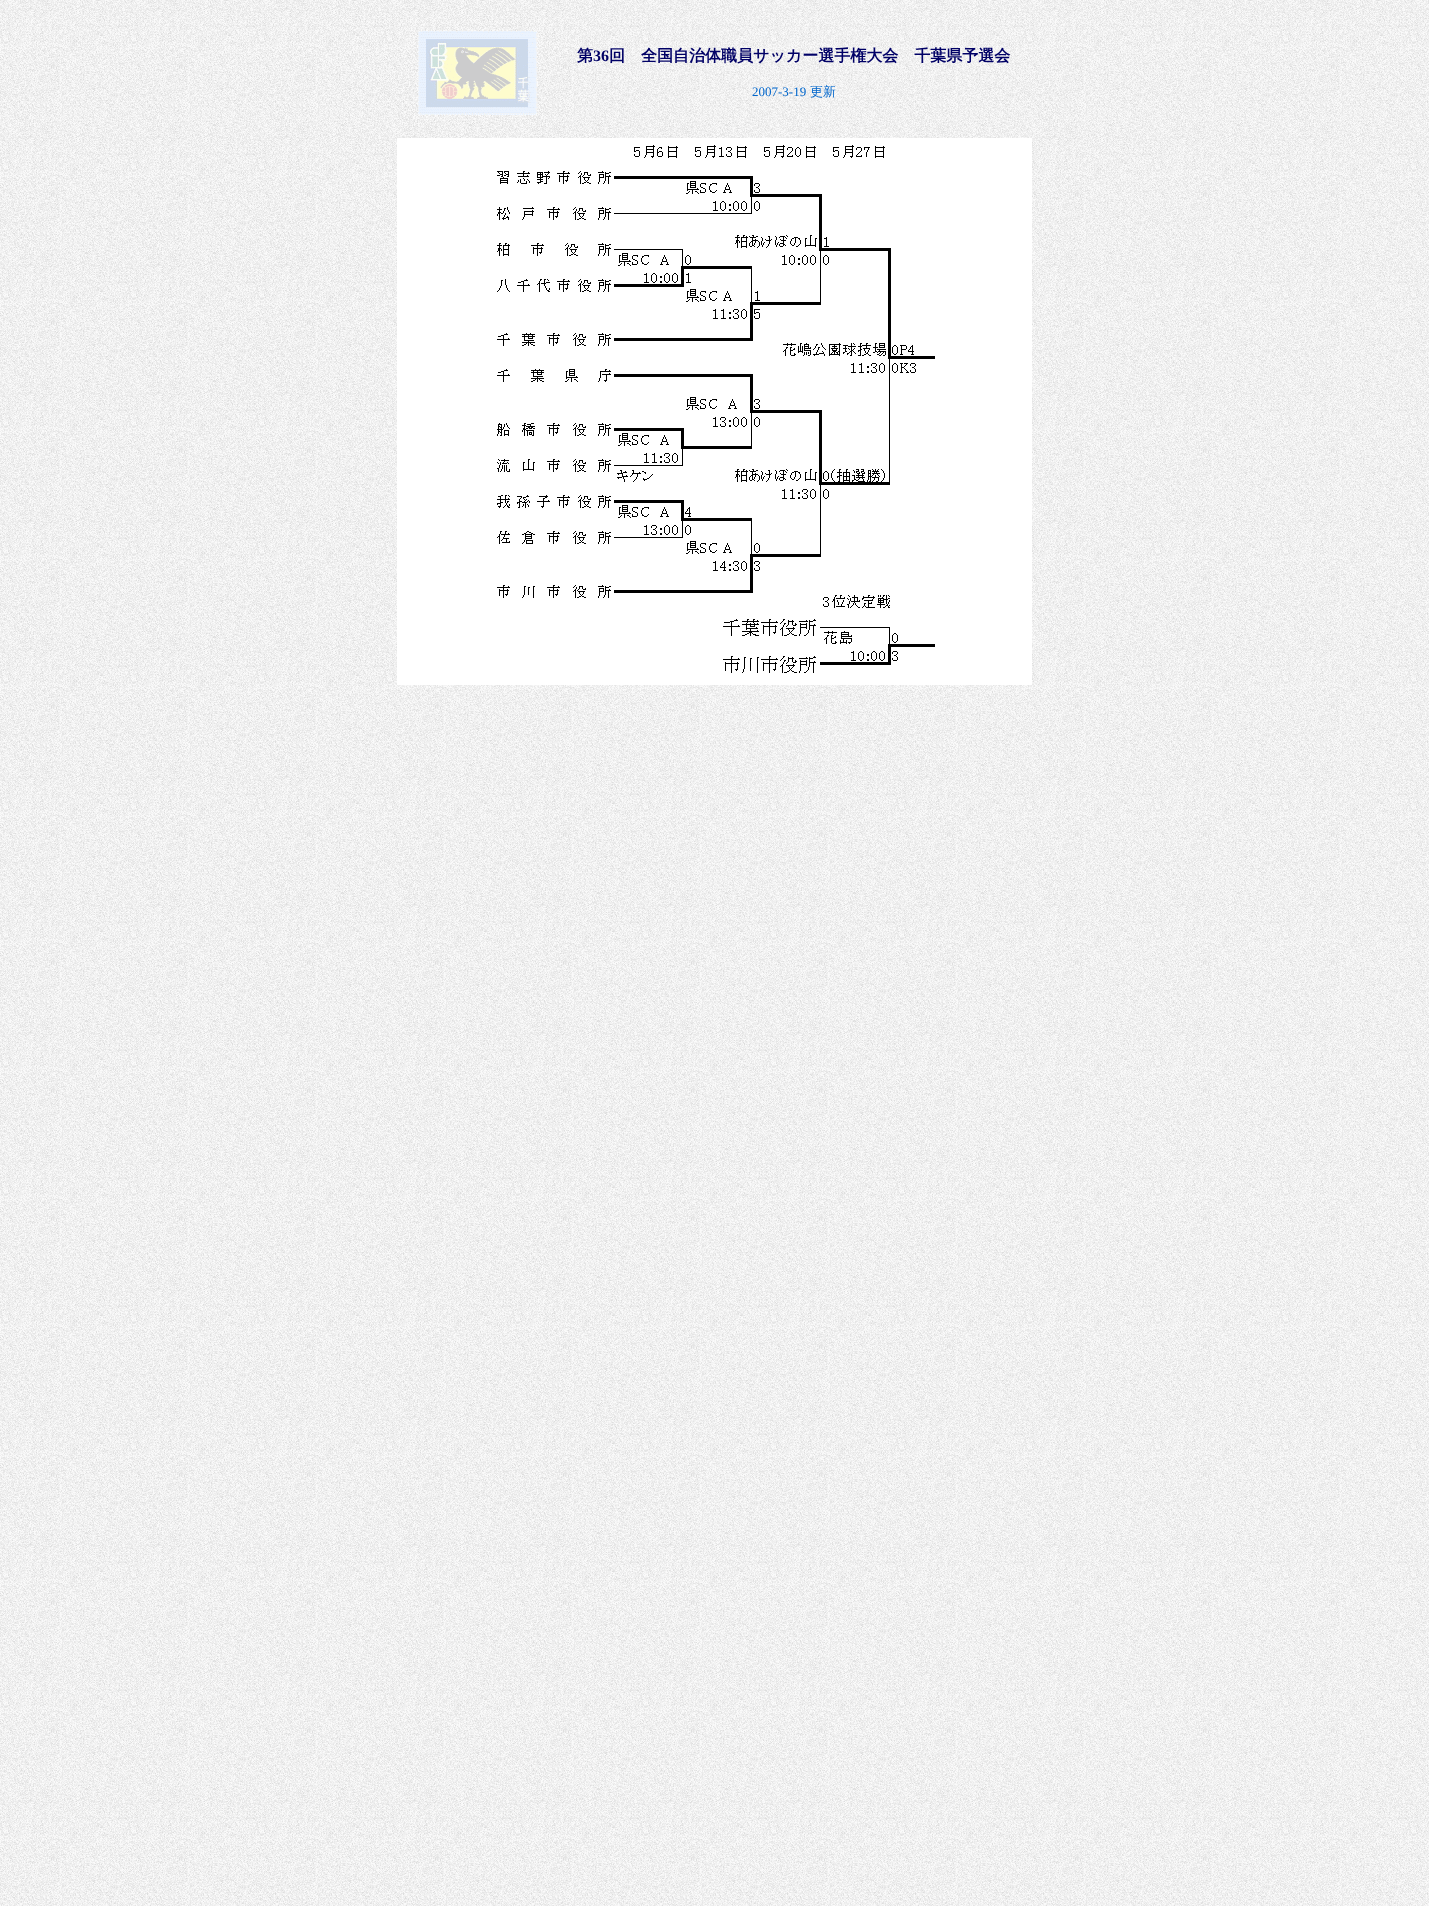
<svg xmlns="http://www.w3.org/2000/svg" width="1429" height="1906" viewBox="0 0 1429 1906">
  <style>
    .t1 { font: bold 16px WenQuanYi Zen Hei; fill: #006; }
    .t2 { font: bold 16px Liberation Serif; fill: #006; }
    .t3 { font: 13px Liberation Serif; fill: #06c; }
    .t4 { font: 500 13px WenQuanYi Zen Hei; fill: #06c; }
  </style>
  <rect width="100%" height="100%" fill="#fff"/>
  <image x="0" y="0" width="1429" height="1906" href="images/1.png"/>
  <image x="418" y="31" width="119" height="84" href="images/2.png"/>
  <text x="577" y="61" class="t1">第</text>
  <text x="593" y="61" class="t2">36</text>
  <text x="609" y="61" class="t1">回　全国自治体職員サッカー選手権大会　千葉県予選会</text>
  <text x="752" y="96" class="t3">2007-3-19</text>
  <text x="810" y="96" class="t4">更新</text>
  <rect x="397" y="138" width="635" height="547" fill="#fff"/>
  <image x="497" y="145" width="438" height="528" href="images/3.png"/>
</svg>
